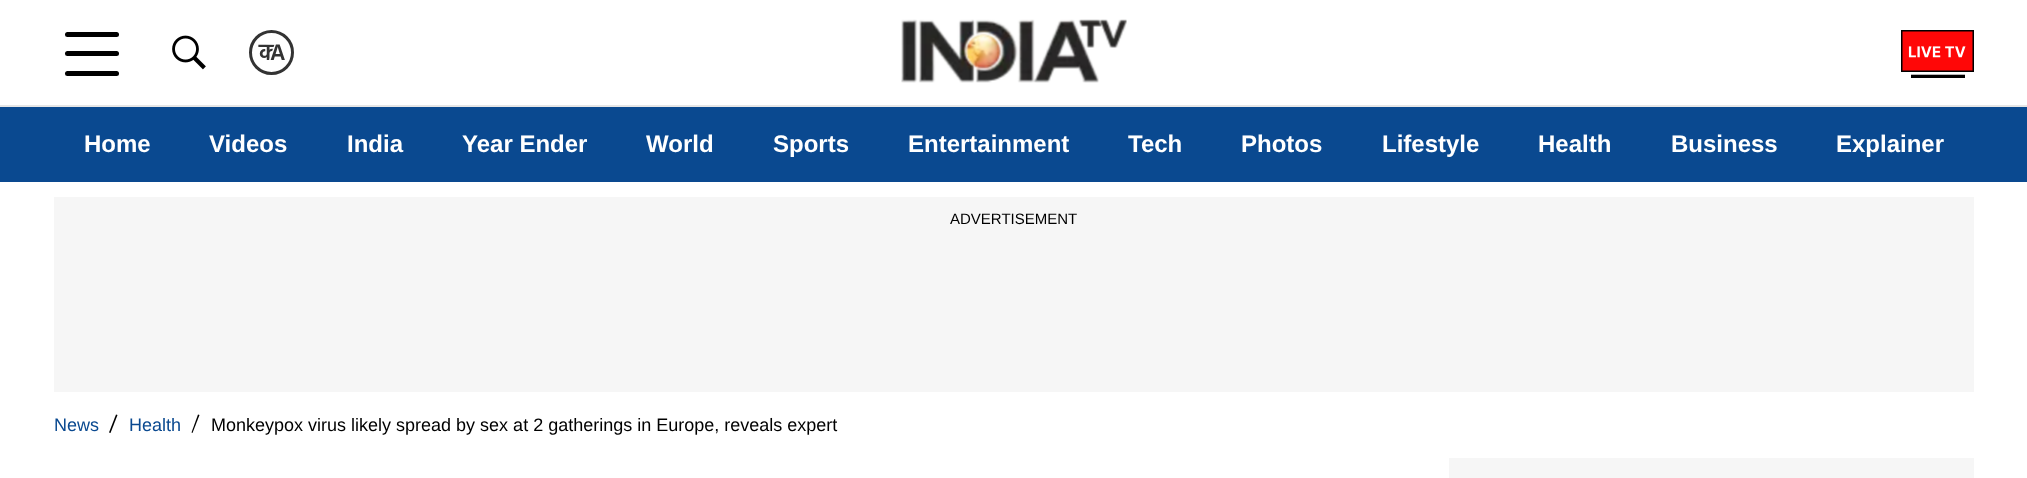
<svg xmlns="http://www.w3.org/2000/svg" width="2027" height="478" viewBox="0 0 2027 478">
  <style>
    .t1 { font: 600 23px Hind; fill: #333; }
    .t2 { font: bold 24px Liberation Sans; fill: #fff; }
    .t3 { font: 15px Liberation Sans; fill: #000; }
    .t4 { font: 18px Liberation Sans; fill: #0a4990; }
    .t5 { font: 18px Liberation Sans; fill: #000; }
  </style>
  <defs>
    <clipPath id="clip1"><path d="M274.5 44.5L270.5 55.5L269 61H256L255.5 43.5Z"/></clipPath>
  </defs>
  <rect width="100%" height="100%" fill="#fff"/>
  <rect x="0" y="105" width="2027" height="2" fill="#e6e6e6"/>
  <rect x="65" y="32" width="54" height="5" rx="2.5" fill="#000"/>
  <rect x="65" y="51" width="54" height="5" rx="2.5" fill="#000"/>
  <rect x="65" y="71" width="54" height="5" rx="2.5" fill="#000"/>
  <image x="172" y="35" width="34" height="35" href="images/1.png"/>
  <circle cx="271.5" cy="52.5" r="21" fill="none" stroke="#333" stroke-width="3"/>
  <text x="270" y="60" class="t1">A</text>
  <g clip-path="url(#clip1)">
    <text x="259" y="60" class="t1">क</text>
  </g>
  <image x="901" y="19" width="226" height="64" href="images/2.png"/>
  <image x="1901" y="30" width="73" height="48" href="images/3.png"/>
  <rect x="0" y="107" width="2027" height="75" fill="#0a4990"/>
  <text x="84" y="152" class="t2">Home</text>
  <text x="209" y="152" class="t2">Videos</text>
  <text x="347" y="152" class="t2">India</text>
  <text x="462" y="152" class="t2">Year Ender</text>
  <text x="646" y="152" class="t2">World</text>
  <text x="773" y="152" class="t2">Sports</text>
  <text x="908" y="152" class="t2">Entertainment</text>
  <text x="1128" y="152" class="t2">Tech</text>
  <text x="1241" y="152" class="t2">Photos</text>
  <text x="1382" y="152" class="t2">Lifestyle</text>
  <text x="1538" y="152" class="t2">Health</text>
  <text x="1671" y="152" class="t2">Business</text>
  <text x="1836" y="152" class="t2">Explainer</text>
  <rect x="54" y="197" width="1920" height="195" fill="#f6f6f6"/>
  <text x="950" y="224" class="t3">ADVERTISEMENT</text>
  <text x="54" y="431" class="t4">News</text>
  <path d="M116 414.5L117.5 415L110.5 433L109 432.5Z" fill="#000"/>
  <text x="129" y="431" class="t4">Health</text>
  <path d="M198 414.5L199.5 415L192.5 433L191.5 432.5Z" fill="#000"/>
  <text x="211" y="431" class="t5">Monkeypox virus likely spread by sex at 2 gatherings in Europe, reveals expert</text>
  <rect x="1449" y="458" width="525" height="20" fill="#f6f6f6"/>
</svg>
